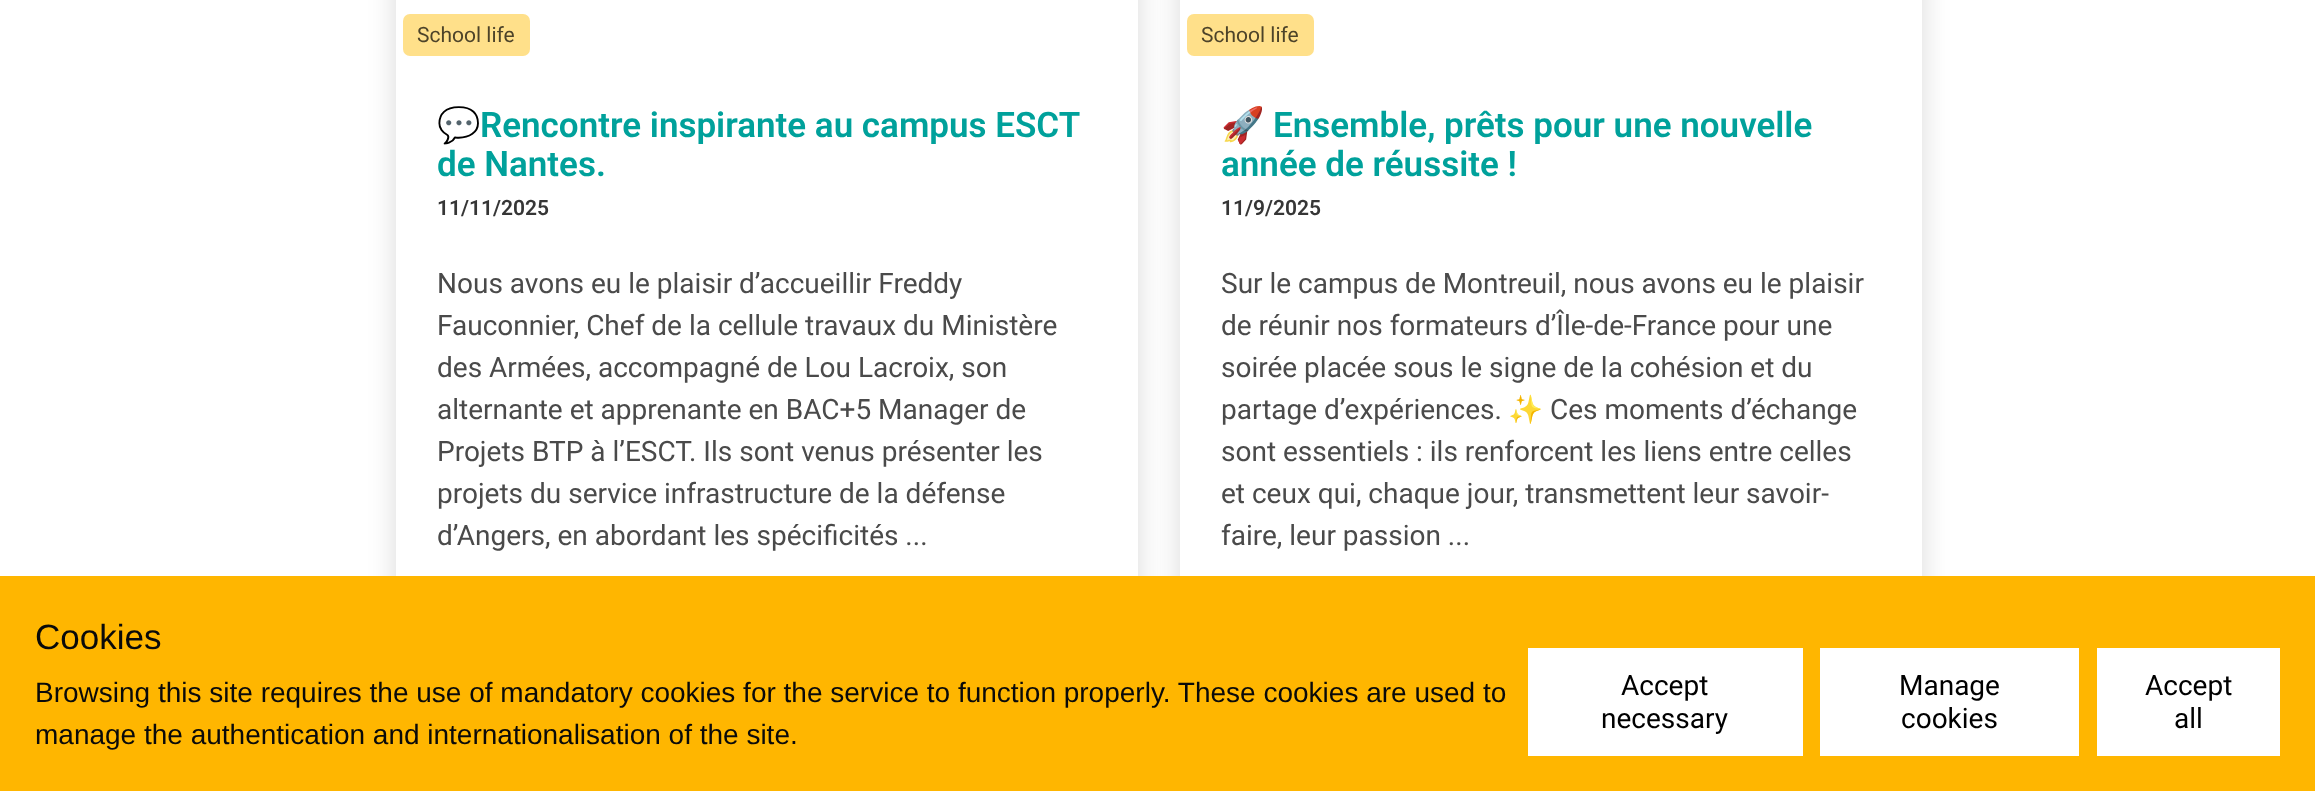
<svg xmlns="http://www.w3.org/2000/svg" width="2315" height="791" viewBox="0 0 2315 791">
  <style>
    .t1 { font: 21px Roboto; fill: #4d4329; }
    .t2 { font: bold 35px Noto Color Emoji; fill: #00a19b; }
    .t3 { font: 600 35px Roboto; fill: #00a19b; }
    .t4 { font: 600 21px Roboto; fill: #363636; }
    .t5 { font: 28px Roboto; fill: #4a4a4a; }
    .t6 { font: 28px Noto Color Emoji; fill: #4a4a4a; }
    .t7 { font: 35px Liberation Sans; fill: #0a0a0a; }
    .t8 { font: 28px Liberation Sans; fill: #0a0a0a; }
    .t9 { font: 28px Roboto; fill: #000; }
  </style>
  <rect width="100%" height="100%" fill="#fff"/>
  <rect x="396" y="-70" width="742" height="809" rx="28" fill="#00000026" filter="blur(14px)"/>
  <rect x="396" y="0" width="742" height="576" fill="#fff"/>
  <rect x="403" y="14" width="127" height="42" rx="7" fill="#ffe08a"/>
  <text x="417" y="42" class="t1">School life</text>
  <text x="437" y="137" class="t2">💬</text>
  <text x="480" y="137" class="t3">Rencontre inspirante au campus ESCT</text>
  <text x="437" y="176" class="t3">de Nantes.</text>
  <text x="437" y="215" class="t4">11/11/2025</text>
  <text x="437" y="293" class="t5">Nous avons eu le plaisir d’accueillir Freddy</text>
  <text x="437" y="335" class="t5">Fauconnier, Chef de la cellule travaux du Ministère</text>
  <text x="437" y="377" class="t5">des Armées, accompagné de Lou Lacroix, son</text>
  <text x="437" y="419" class="t5">alternante et apprenante en BAC+5 Manager de</text>
  <text x="437" y="461" class="t5">Projets BTP à l’ESCT. Ils sont venus présenter les</text>
  <text x="437" y="503" class="t5">projets du service infrastructure de la défense</text>
  <text x="437" y="545" class="t5">d’Angers, en abordant les spécificités ...</text>
  <rect x="1180" y="-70" width="742" height="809" rx="28" fill="#00000026" filter="blur(14px)"/>
  <rect x="1180" y="0" width="742" height="576" fill="#fff"/>
  <rect x="1187" y="14" width="127" height="42" rx="7" fill="#ffe08a"/>
  <text x="1201" y="42" class="t1">School life</text>
  <text x="1221" y="137" class="t2">🚀</text>
  <text x="1273" y="137" class="t3">Ensemble, prêts pour une nouvelle</text>
  <text x="1221" y="176" class="t3">année de réussite !</text>
  <text x="1221" y="215" class="t4">11/9/2025</text>
  <text x="1221" y="293" class="t5">Sur le campus de Montreuil, nous avons eu le plaisir</text>
  <text x="1221" y="335" class="t5">de réunir nos formateurs d’Île-de-France pour une</text>
  <text x="1221" y="377" class="t5">soirée placée sous le signe de la cohésion et du</text>
  <text x="1221" y="419" class="t5">partage d’expériences.</text>
  <text x="1508" y="419" class="t6">✨</text>
  <text x="1550" y="419" class="t5">Ces moments d’échange</text>
  <text x="1221" y="461" class="t5">sont essentiels : ils renforcent les liens entre celles</text>
  <text x="1221" y="503" class="t5">et ceux qui, chaque jour, transmettent leur savoir-</text>
  <text x="1221" y="545" class="t5">faire, leur passion ...</text>
  <rect x="0" y="576" width="2315" height="215" fill="#ffb600"/>
  <text x="35" y="649" class="t7">Cookies</text>
  <text x="35" y="702" class="t8">Browsing this site requires the use of mandatory cookies for the service to function properly. These cookies are used to</text>
  <text x="35" y="744" class="t8">manage the authentication and internationalisation of the site.</text>
  <rect x="1528" y="648" width="275" height="108" fill="#fff"/>
  <text x="1621" y="695" class="t9">Accept</text>
  <text x="1601" y="728" class="t9">necessary</text>
  <rect x="1820" y="648" width="259" height="108" fill="#fff"/>
  <text x="1899" y="695" class="t9">Manage</text>
  <text x="1901" y="728" class="t9">cookies</text>
  <rect x="2097" y="648" width="183" height="108" fill="#fff"/>
  <text x="2145" y="695" class="t9">Accept</text>
  <text x="2174" y="728" class="t9">all</text>
</svg>
